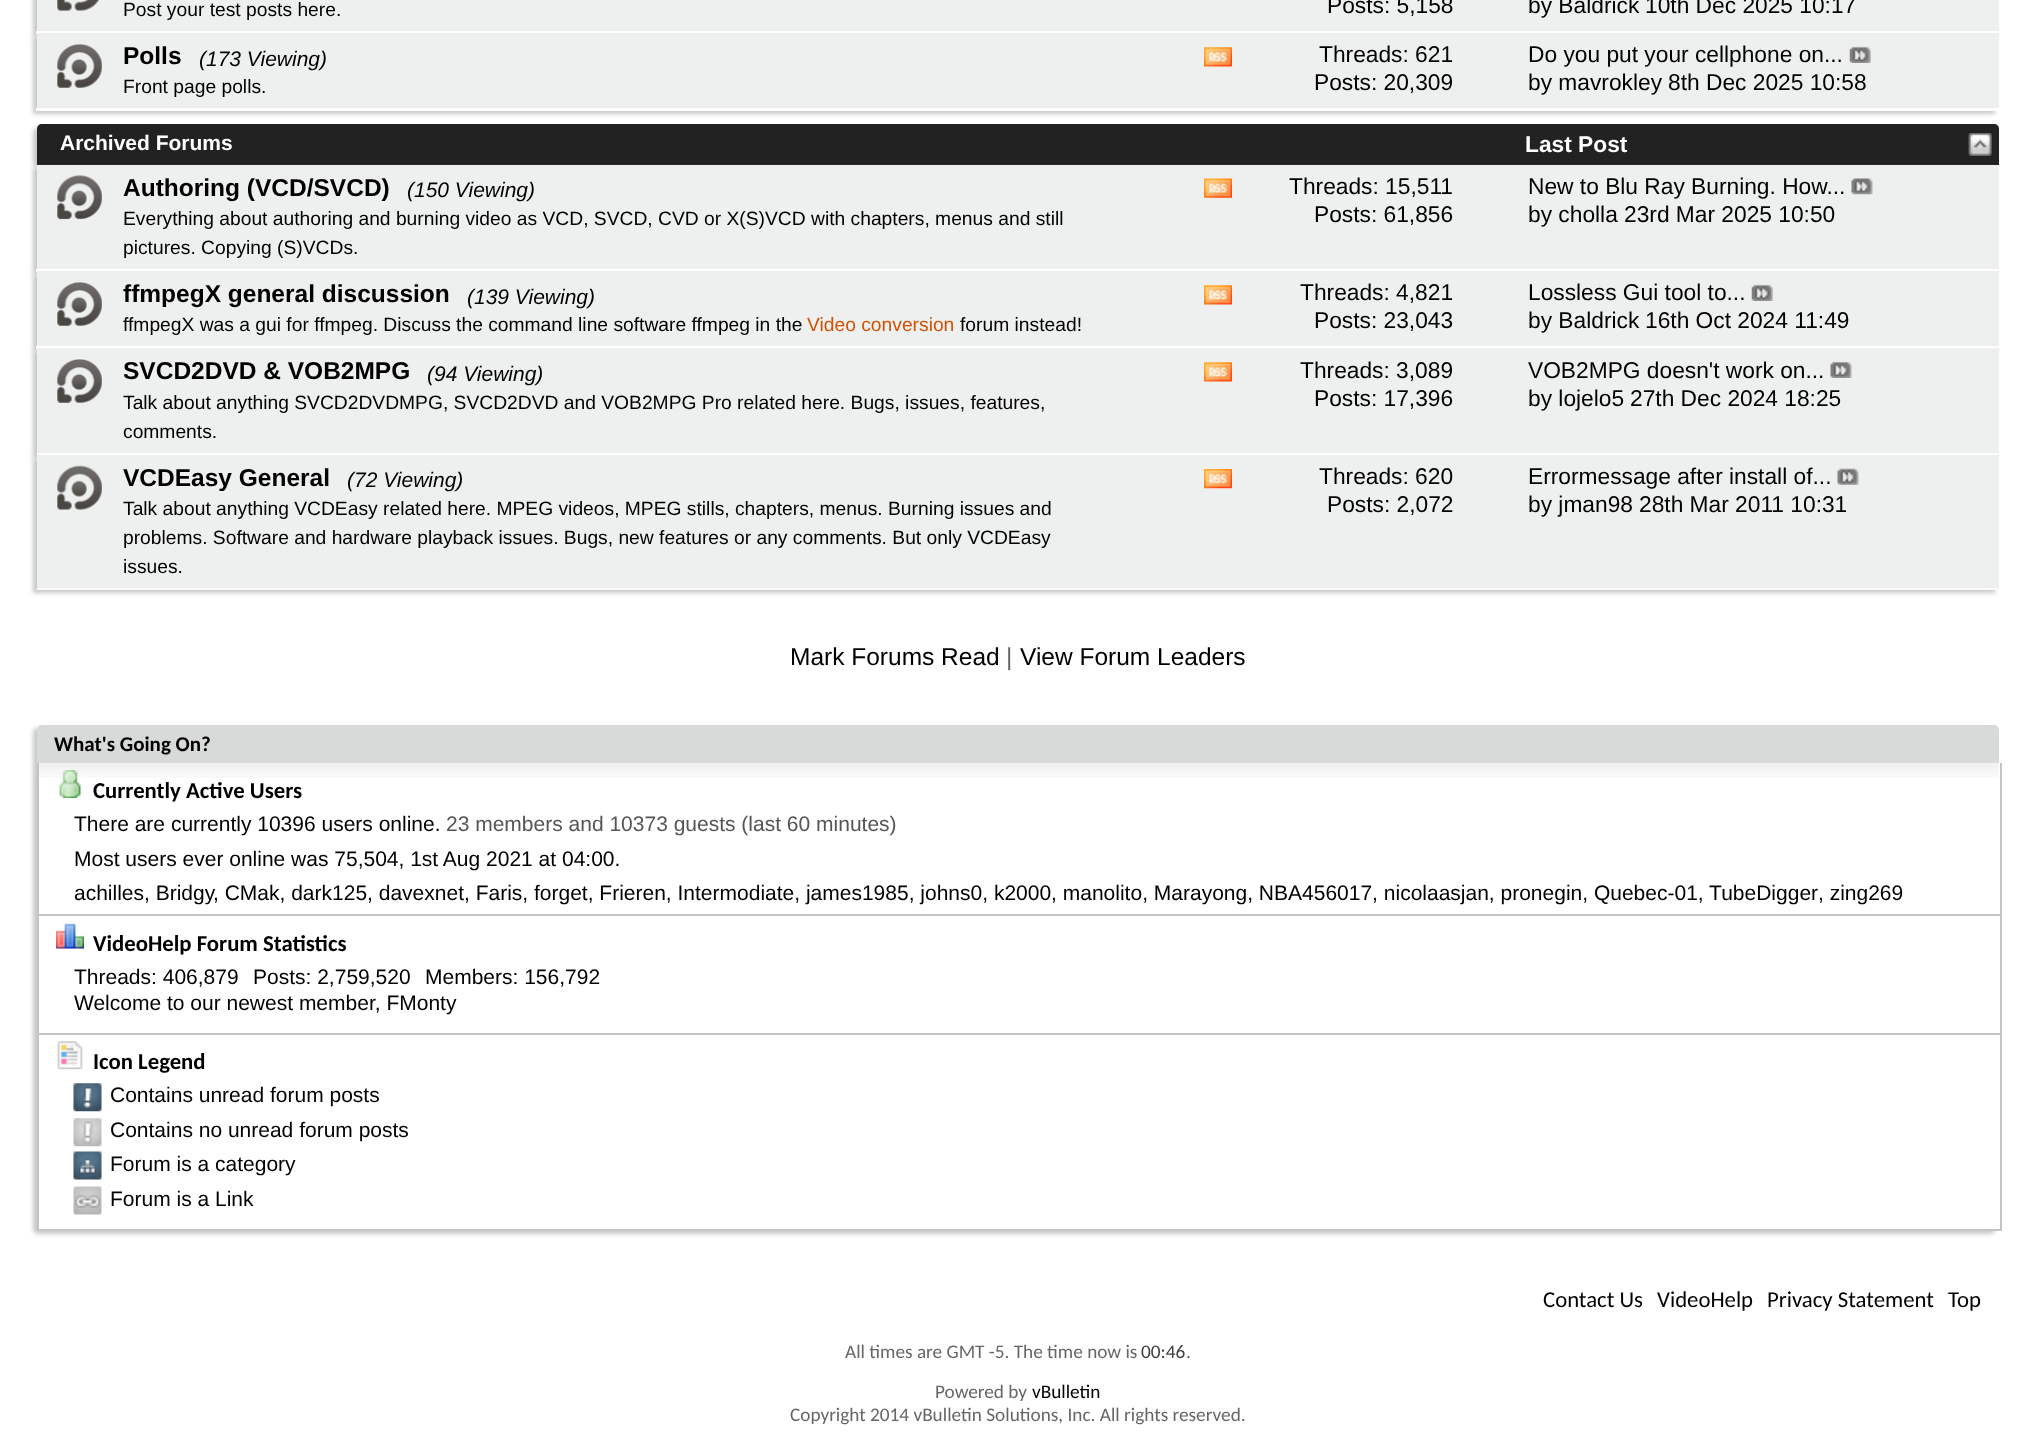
<svg xmlns="http://www.w3.org/2000/svg" width="2035" height="1452" viewBox="0 0 2035 1452">
  <style>
    .t1 { font: 19.25px Liberation Sans; fill: #000; }
    .t2 { font: 22.75px Liberation Sans; fill: #000; }
    .t3 { font: bold 24.5px Liberation Sans; fill: #000; }
    .t4 { font: italic 21px Liberation Sans; fill: #000; }
    .t5 { font: bold 21px Liberation Sans; fill: #fff; }
    .t6 { font: bold 22.75px Liberation Sans; fill: #fff; }
    .t7 { font: 19.25px Liberation Sans; fill: #d35100; }
    .t8 { font: 24.5px Liberation Sans; fill: #000; }
    .t9 { font: 24.5px Liberation Sans; fill: #666; }
    .t10 { font: bold 21px Carlito; fill: #000; }
    .t11 { font: bold 22.75px Carlito; fill: #000; }
    .t12 { font: 21px Liberation Sans; fill: #000; }
    .t13 { font: 21px Liberation Sans; fill: #555; }
    .t14 { font: 22.75px Carlito; fill: #000; }
    .t15 { font: 19.25px Carlito; fill: #666; }
    .t16 { font: 19.25px Carlito; fill: #3e3e3e; }
    .t17 { font: 19.25px Carlito; fill: #000; }
  </style>
  <defs>
    <clipPath id="clip1"><path d="M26 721H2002V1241H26ZM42 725H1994C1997 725 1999 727 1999 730V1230H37V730C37 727 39 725 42 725Z" clip-rule="evenodd"/></clipPath>
  </defs>
  <rect width="100%" height="100%" fill="#fff"/>
  <rect x="33" y="-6" width="1962" height="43" fill="#c8c8c8" filter="blur(2px)"/>
  <rect x="37" y="0" width="1962" height="31" fill="#eef0f0"/>
  <rect x="36" y="31" width="1963" height="3" fill="#fff"/>
  <image x="57" y="0" width="43" height="11" href="images/1.png"/>
  <text x="123" y="16" class="t1">Post your test posts here.</text>
  <text x="1327" y="13" class="t2">Posts: 5,158</text>
  <text x="1528" y="13" class="t2">by Baldrick</text>
  <text x="1645" y="13" class="t2">10th Dec 2025 10:17</text>
  <rect x="33" y="37" width="1962" height="77" fill="#c8c8c8" filter="blur(2px)"/>
  <rect x="37" y="33" width="1962" height="75" fill="#eef0f0"/>
  <rect x="36" y="108" width="1963" height="3" fill="#fff"/>
  <image x="57" y="44" width="45" height="44" href="images/2.png"/>
  <text x="123" y="64" class="t3">Polls</text>
  <text x="199" y="66" class="t4">(173 Viewing)</text>
  <text x="123" y="93" class="t1">Front page polls.</text>
  <image x="1204" y="47" width="28" height="20" href="images/3.png"/>
  <text x="1319" y="62" class="t2">Threads: 621</text>
  <text x="1314" y="90" class="t2">Posts: 20,309</text>
  <text x="1528" y="62" class="t2">Do you put your cellphone on...</text>
  <image x="1849" y="46" width="22" height="17" href="images/4.png"/>
  <text x="1528" y="90" class="t2">by mavrokley</text>
  <text x="1668" y="90" class="t2">8th Dec 2025 10:58</text>
  <rect x="33" y="128" width="1962" height="40" rx="5" fill="#c8c8c8" filter="blur(2px)"/>
  <path d="M42 124H1994C1997 124 1999 126 1999 129V165H37V129C37 126 39 124 42 124Z" fill="#222"/>
  <text x="60" y="150" class="t5">Archived Forums</text>
  <text x="1525" y="152" class="t6">Last Post</text>
  <image x="1968" y="133" width="24" height="23" href="images/5.png"/>
  <image x="1968" y="133" width="24" height="23" href="images/6.png"/>
  <rect x="33" y="168" width="1962" height="107" fill="#c8c8c8" filter="blur(2px)"/>
  <rect x="37" y="165" width="1962" height="104" fill="#eef0f0"/>
  <rect x="36" y="269" width="1963" height="3" fill="#fff"/>
  <image x="57" y="175" width="45" height="45" href="images/7.png"/>
  <text x="123" y="196" class="t3">Authoring (VCD/SVCD)</text>
  <text x="407" y="197" class="t4">(150 Viewing)</text>
  <text x="123" y="225" class="t1">Everything about authoring and burning video as VCD, SVCD, CVD or X(S)VCD with chapters, menus and still</text>
  <text x="123" y="254" class="t1">pictures. Copying (S)VCDs.</text>
  <image x="1204" y="178" width="28" height="20" href="images/8.png"/>
  <text x="1289" y="194" class="t2">Threads: 15,511</text>
  <text x="1314" y="222" class="t2">Posts: 61,856</text>
  <text x="1528" y="194" class="t2">New to Blu Ray Burning. How...</text>
  <image x="1851" y="178" width="22" height="17" href="images/9.png"/>
  <text x="1528" y="222" class="t2">by cholla</text>
  <text x="1624" y="222" class="t2">23rd Mar 2025 10:50</text>
  <rect x="33" y="275" width="1962" height="77" fill="#c8c8c8" filter="blur(2px)"/>
  <rect x="37" y="271" width="1962" height="75" fill="#eef0f0"/>
  <rect x="36" y="346" width="1963" height="3" fill="#fff"/>
  <image x="57" y="282" width="45" height="44" href="images/2.png"/>
  <text x="123" y="302" class="t3">ffmpegX general discussion</text>
  <text x="467" y="304" class="t4">(139 Viewing)</text>
  <text x="123" y="331" class="t1">ffmpegX was a gui for ffmpeg. Discuss the command line software ffmpeg in the</text>
  <text x="807" y="331" class="t7">Video conversion</text>
  <text x="960" y="331" class="t1">forum instead!</text>
  <image x="1204" y="285" width="28" height="20" href="images/3.png"/>
  <text x="1300" y="300" class="t2">Threads: 4,821</text>
  <text x="1314" y="328" class="t2">Posts: 23,043</text>
  <text x="1528" y="300" class="t2">Lossless Gui tool to...</text>
  <image x="1751" y="284" width="22" height="17" href="images/4.png"/>
  <text x="1528" y="328" class="t2">by Baldrick</text>
  <text x="1645" y="328" class="t2">16th Oct 2024 11:49</text>
  <rect x="33" y="352" width="1962" height="107" fill="#c8c8c8" filter="blur(2px)"/>
  <rect x="37" y="348" width="1962" height="107" fill="#eef0f0"/>
  <image x="36" y="453" width="1963" height="2" href="images/10.png"/>
  <image x="57" y="359" width="45" height="44" href="images/2.png"/>
  <text x="123" y="379" class="t3">SVCD2DVD &amp; VOB2MPG</text>
  <text x="427" y="381" class="t4">(94 Viewing)</text>
  <text x="123" y="409" class="t1">Talk about anything SVCD2DVDMPG, SVCD2DVD and VOB2MPG Pro related here. Bugs, issues, features,</text>
  <text x="123" y="438" class="t1">comments.</text>
  <image x="1204" y="362" width="28" height="20" href="images/3.png"/>
  <text x="1300" y="378" class="t2">Threads: 3,089</text>
  <text x="1314" y="406" class="t2">Posts: 17,396</text>
  <text x="1528" y="378" class="t2">VOB2MPG doesn't work on...</text>
  <image x="1830" y="361" width="22" height="17" href="images/11.png"/>
  <text x="1528" y="406" class="t2">by lojelo5</text>
  <text x="1630" y="406" class="t2">27th Dec 2024 18:25</text>
  <rect x="33" y="459" width="1962" height="134" fill="#c8c8c8" filter="blur(2px)"/>
  <rect x="37" y="455" width="1962" height="135" fill="#eef0f0"/>
  <image x="36" y="588" width="1963" height="2" href="images/12.png"/>
  <image x="57" y="465" width="45" height="45" href="images/13.png"/>
  <text x="123" y="486" class="t3">VCDEasy General</text>
  <text x="347" y="487" class="t4">(72 Viewing)</text>
  <text x="123" y="515" class="t1">Talk about anything VCDEasy related here. MPEG videos, MPEG stills, chapters, menus. Burning issues and</text>
  <text x="123" y="544" class="t1">problems. Software and hardware playback issues. Bugs, new features or any comments. But only VCDEasy</text>
  <text x="123" y="573" class="t1">issues.</text>
  <image x="1204" y="469" width="28" height="20" href="images/14.png"/>
  <text x="1319" y="484" class="t2">Threads: 620</text>
  <text x="1327" y="512" class="t2">Posts: 2,072</text>
  <text x="1528" y="484" class="t2">Errormessage after install of...</text>
  <image x="1837" y="468" width="22" height="17" href="images/15.png"/>
  <text x="1528" y="512" class="t2">by jman98</text>
  <text x="1639" y="512" class="t2">28th Mar 2011 10:31</text>
  <text x="790" y="665" class="t8">Mark Forums Read</text>
  <text x="1006" y="665" class="t9">|</text>
  <text x="1020" y="665" class="t8">View Forum Leaders</text>
  <g clip-path="url(#clip1)">
    <rect x="33" y="728" width="1962" height="506" rx="5" fill="#c8c8c8" filter="blur(2px)"/>
  </g>
  <path d="M42 725H1994C1997 725 1999 727 1999 730V763H37V730C37 727 39 725 42 725Z" fill="#d8dada"/>
  <text x="54" y="751" class="t10">What's Going On?</text>
  <image x="39" y="763" width="1960" height="15" href="images/16.png"/>
  <rect x="2000" y="763" width="2" height="152" fill="#c4c4c4"/>
  <rect x="37" y="914" width="1965" height="2" fill="#c4c4c4"/>
  <rect x="37" y="763" width="2" height="152" fill="#c4c4c4"/>
  <image x="59" y="770" width="22" height="28" href="images/17.png"/>
  <text x="93" y="798" class="t11">Currently Active Users</text>
  <text x="74" y="831" class="t12">There are currently 10396 users online.</text>
  <text x="446" y="831" class="t13">23 members and 10373 guests (last 60 minutes)</text>
  <text x="74" y="866" class="t12">Most users ever online was 75,504, 1st Aug 2021 at 04:00.</text>
  <text x="74" y="900" class="t12">achilles, Bridgy</text>
  <text x="213" y="900" class="t12">, CMak, dark125, davexnet, Faris, forget, Frieren, Intermodiate, james1985, johns0, k2000, manolito, Marayong, NBA456017, nicolaasjan, pronegin, Quebec-01, TubeDigger</text>
  <text x="1818" y="900" class="t12">, zing269</text>
  <rect x="2000" y="915" width="2" height="119" fill="#c4c4c4"/>
  <rect x="37" y="1033" width="1965" height="2" fill="#c4c4c4"/>
  <rect x="37" y="915" width="2" height="119" fill="#c4c4c4"/>
  <image x="56" y="923" width="28" height="26" href="images/18.png"/>
  <text x="93" y="951" class="t11">VideoHelp Forum Statistics</text>
  <text x="74" y="984" class="t12">Threads: 406,879</text>
  <text x="253" y="984" class="t12">Posts: 2,759,520</text>
  <text x="425" y="984" class="t12">Members: 156,792</text>
  <text x="74" y="1010" class="t12">Welcome to our newest member, FMonty</text>
  <rect x="2000" y="1034" width="2" height="196" fill="#c4c4c4"/>
  <rect x="37" y="1229" width="1965" height="2" fill="#c4c4c4"/>
  <rect x="37" y="1034" width="2" height="196" fill="#c4c4c4"/>
  <image x="57" y="1041" width="26" height="29" href="images/19.png"/>
  <text x="93" y="1069" class="t11">Icon Legend</text>
  <image x="73" y="1083" width="29" height="29" href="images/20.png"/>
  <text x="110" y="1102" class="t12">Contains unread forum posts</text>
  <image x="73" y="1118" width="29" height="29" href="images/21.png"/>
  <text x="110" y="1137" class="t12">Contains no unread forum posts</text>
  <image x="73" y="1151" width="29" height="29" href="images/22.png"/>
  <text x="110" y="1171" class="t12">Forum is a category</text>
  <image x="73" y="1186" width="29" height="29" href="images/23.png"/>
  <text x="110" y="1206" class="t12">Forum is a Link</text>
  <text x="1543" y="1307" class="t14">Contact Us</text>
  <text x="1657" y="1307" class="t14">VideoHelp</text>
  <text x="1767" y="1307" class="t14">Privacy Statement</text>
  <text x="1948" y="1307" class="t14">Top</text>
  <text x="845" y="1358" class="t15">All times are GMT -5. The time now is</text>
  <text x="1141" y="1358" class="t16">00:46</text>
  <text x="1186" y="1358" class="t15">.</text>
  <text x="935" y="1398" class="t15">Powered by</text>
  <text x="1032" y="1398" class="t17">vBulletin</text>
  <text x="790" y="1421" class="t15">Copyright 2014 vBulletin Solutions, Inc. All rights reserved.</text>
</svg>
